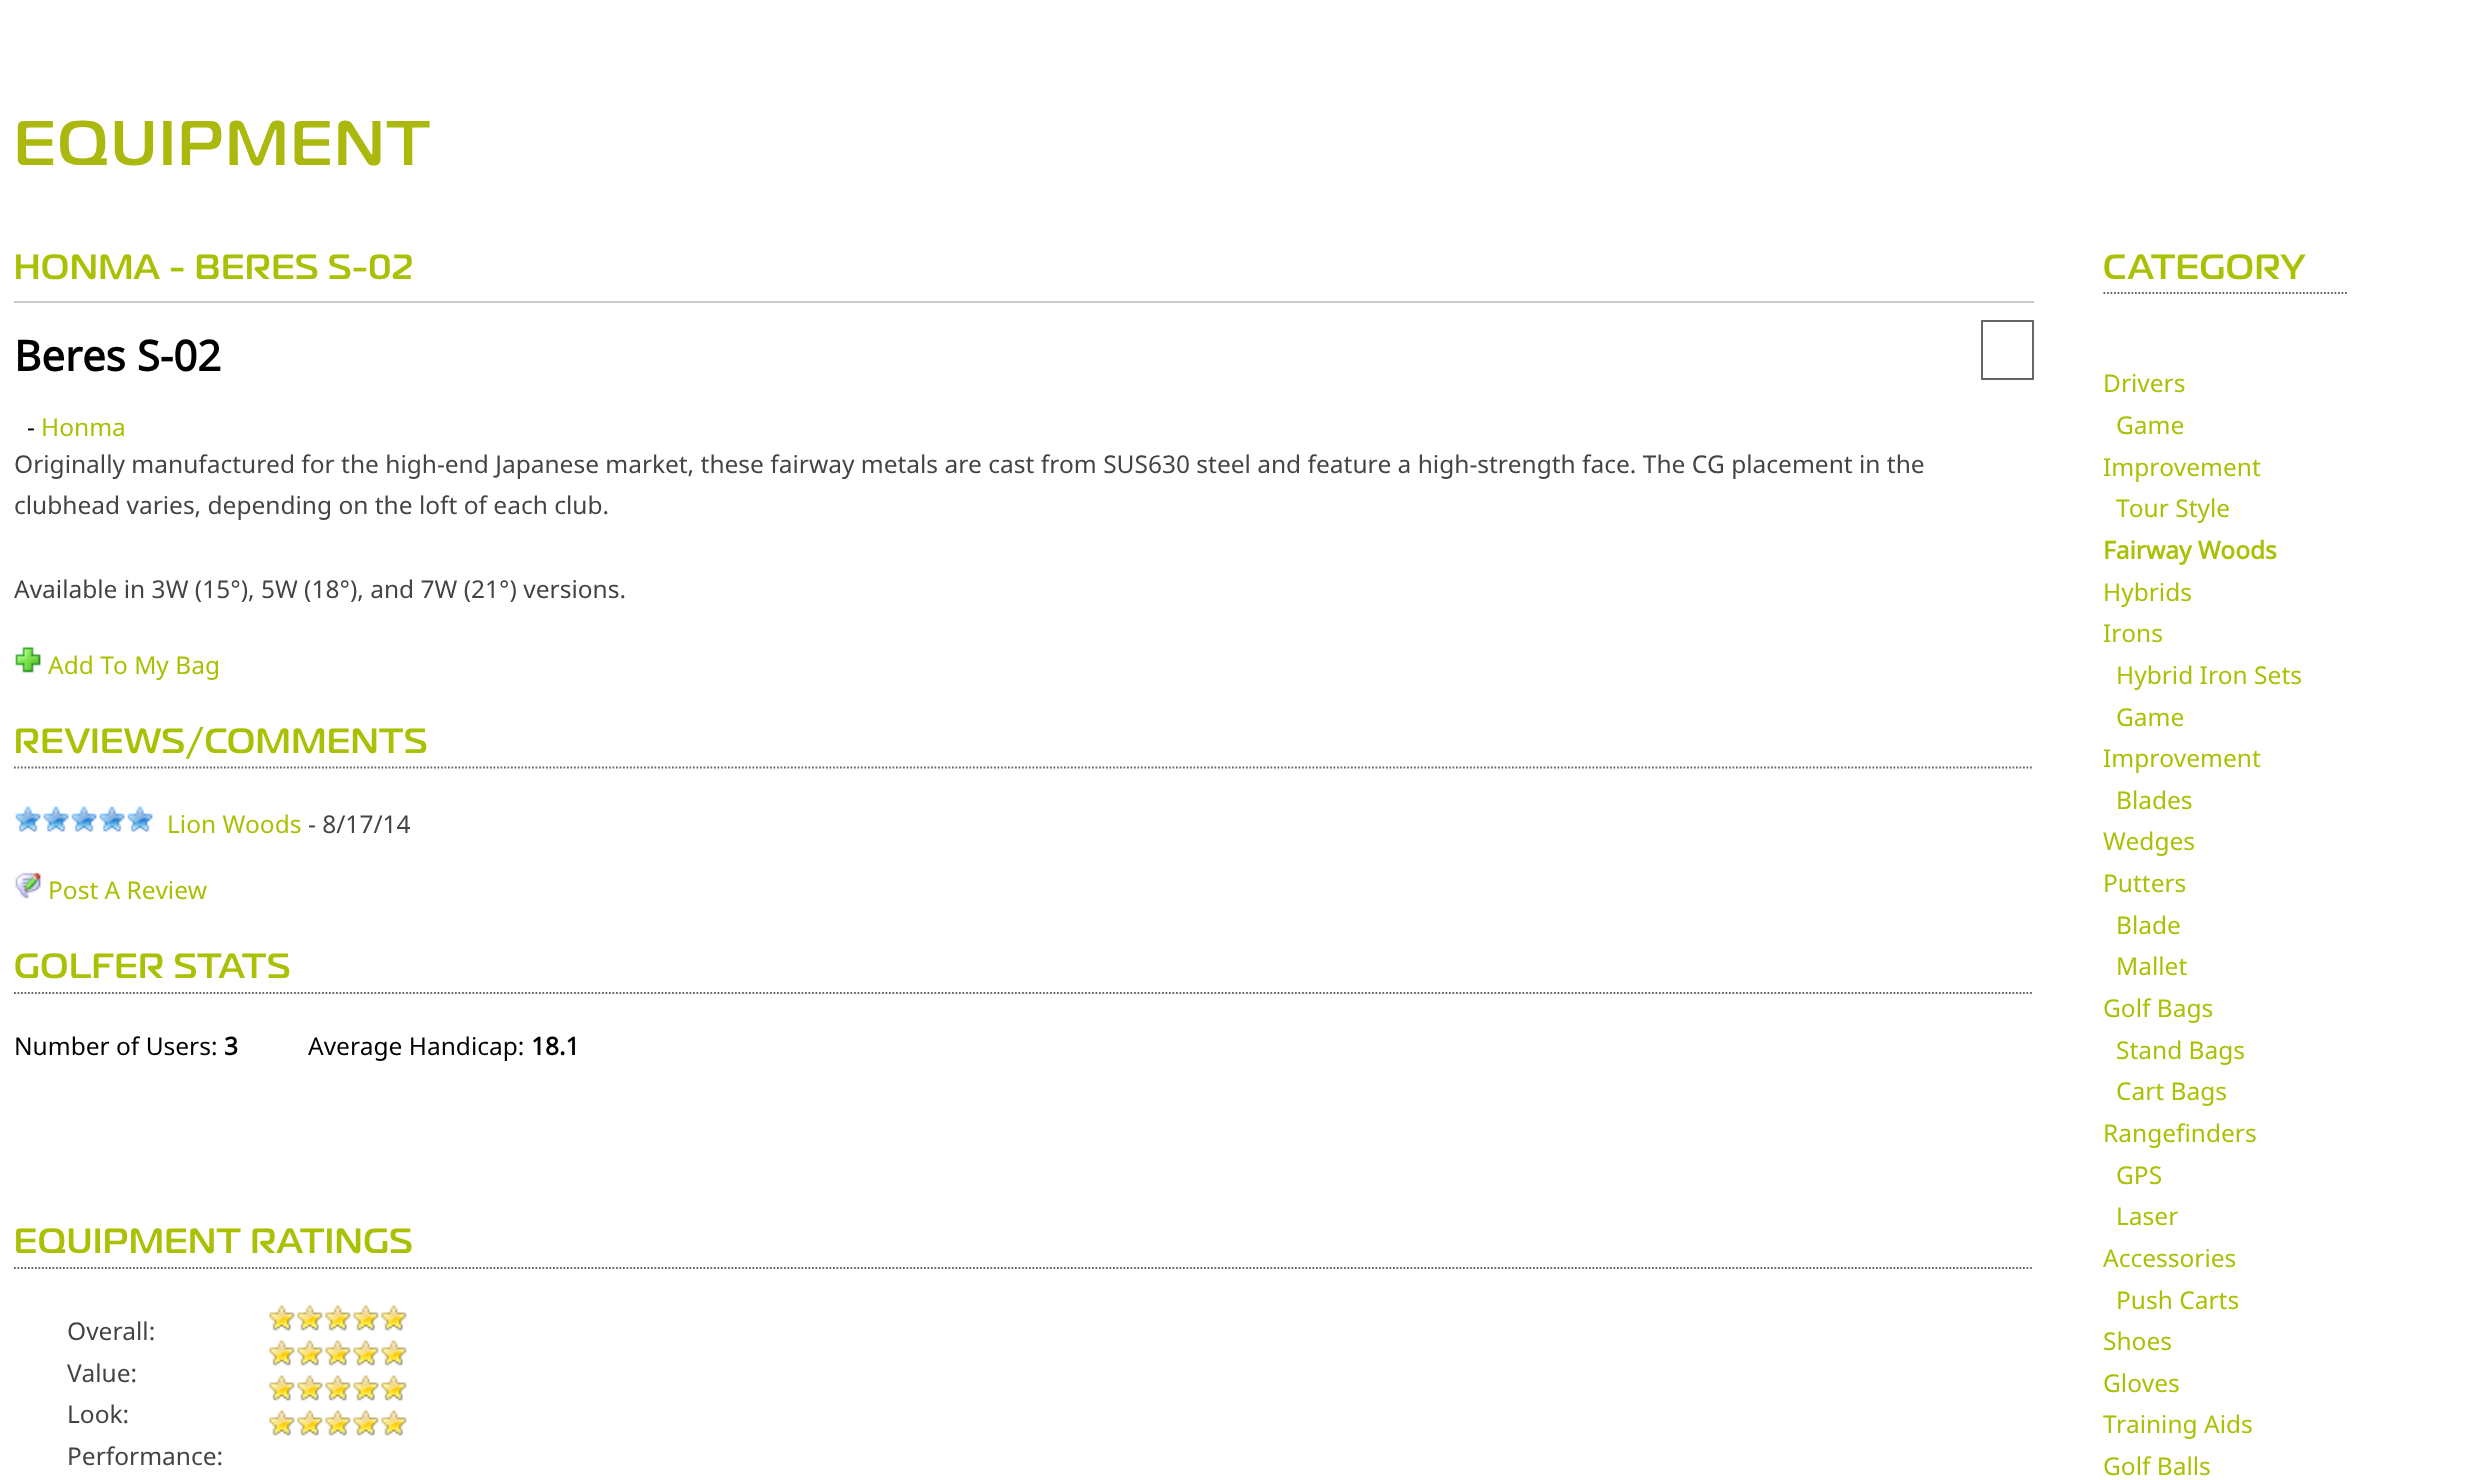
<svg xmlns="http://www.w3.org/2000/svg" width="2489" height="1480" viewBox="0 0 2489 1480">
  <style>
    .t1 { font: 500 63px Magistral; letter-spacing: 2.6px; fill: #abb80e; }
    .t2 { font: 500 35px Magistral; letter-spacing: 0.9px; fill: #aac005; }
    .t3 { font: bold 42px Noto Sans; fill: #000; }
    .t4 { font: 24.5px Noto Sans; fill: #000; }
    .t5 { font: 24.5px Noto Sans; fill: #aac005; }
    .t6 { font: 24.5px Noto Sans; fill: #444; }
    .t7 { font: bold 24.5px Noto Sans; fill: #000; }
    .t8 { font: bold 24.5px Noto Sans; fill: #aac005; }
  </style>
  <rect width="100%" height="100%" fill="#fff"/>
  <text x="14" y="165" class="t1">EQUIPMENT</text>
  <text x="14" y="279" class="t2">HONMA - BERES S-02</text>
  <rect x="14" y="301" width="2020" height="2" fill="#ccc"/>
  <text x="14" y="371" class="t3">Beres S-02</text>
  <rect x="1982" y="321" width="51" height="58" fill="none" stroke="#666" stroke-width="2"/>
  <text x="27" y="436" class="t4">-</text>
  <text x="41" y="436" class="t5">Honma</text>
  <text x="14" y="473" class="t6">Originally manufactured for the high-end Japanese market, these fairway metals are cast from SUS630 steel and feature a high-strength face. The CG placement in the</text>
  <text x="14" y="514" class="t6">clubhead varies, depending on the loft of each club.</text>
  <text x="14" y="598" class="t6">Available in 3W (15°), 5W (18°), and 7W (21°) versions.</text>
  <image x="15" y="647" width="26" height="26" href="images/1.png"/>
  <text x="48" y="674" class="t5">Add To My Bag</text>
  <path d="M14 767.5H2033.5" fill="none" stroke="#666" stroke-width="1.8" stroke-dasharray="1.75 1.75"/>
  <text x="14" y="753" class="t2">REVIEWS/COMMENTS</text>
  <image x="15" y="806" width="26" height="26" href="images/2.png"/>
  <image x="43" y="806" width="26" height="26" href="images/3.png"/>
  <image x="71" y="806" width="26" height="26" href="images/2.png"/>
  <image x="99" y="806" width="26" height="26" href="images/3.png"/>
  <image x="127" y="806" width="26" height="26" href="images/2.png"/>
  <text x="167" y="833" class="t5">Lion Woods</text>
  <text x="308" y="833" class="t6">- 8/17/14</text>
  <image x="15" y="872" width="26" height="27" href="images/4.png"/>
  <text x="48" y="899" class="t5">Post A Review</text>
  <path d="M14 993H2033.5" fill="none" stroke="#666" stroke-width="1.8" stroke-dasharray="1.75 1.75"/>
  <text x="14" y="978" class="t2">GOLFER STATS</text>
  <text x="14" y="1055" class="t4">Number of Users:</text>
  <text x="224" y="1055" class="t7">3</text>
  <text x="308" y="1055" class="t4">Average Handicap:</text>
  <text x="531" y="1055" class="t7">18.1</text>
  <path d="M14 1268H2033.5" fill="none" stroke="#666" stroke-width="1.8" stroke-dasharray="1.75 1.75"/>
  <text x="14" y="1253" class="t2">EQUIPMENT RATINGS</text>
  <text x="67" y="1340" class="t6">Overall:</text>
  <image x="269" y="1305" width="26" height="26" href="images/5.png"/>
  <image x="297" y="1305" width="26" height="26" href="images/5.png"/>
  <image x="325" y="1305" width="26" height="26" href="images/5.png"/>
  <image x="353" y="1305" width="26" height="26" href="images/6.png"/>
  <image x="381" y="1305" width="26" height="26" href="images/5.png"/>
  <image x="269" y="1340" width="26" height="26" href="images/5.png"/>
  <image x="297" y="1340" width="26" height="26" href="images/5.png"/>
  <image x="325" y="1340" width="26" height="26" href="images/5.png"/>
  <image x="353" y="1340" width="26" height="26" href="images/6.png"/>
  <image x="381" y="1340" width="26" height="26" href="images/5.png"/>
  <text x="67" y="1382" class="t6">Value:</text>
  <image x="269" y="1375" width="26" height="26" href="images/5.png"/>
  <image x="297" y="1375" width="26" height="26" href="images/5.png"/>
  <image x="325" y="1375" width="26" height="26" href="images/5.png"/>
  <image x="353" y="1375" width="26" height="26" href="images/6.png"/>
  <image x="381" y="1375" width="26" height="26" href="images/5.png"/>
  <text x="67" y="1423" class="t6">Look:</text>
  <image x="269" y="1410" width="26" height="26" href="images/5.png"/>
  <image x="297" y="1410" width="26" height="26" href="images/5.png"/>
  <image x="325" y="1410" width="26" height="26" href="images/5.png"/>
  <image x="353" y="1410" width="26" height="26" href="images/6.png"/>
  <image x="381" y="1410" width="26" height="26" href="images/5.png"/>
  <text x="67" y="1465" class="t6">Performance:</text>
  <path d="M2103.5 293H2348.5" fill="none" stroke="#666" stroke-width="1.8" stroke-dasharray="1.75 1.75"/>
  <text x="2103" y="279" class="t2">CATEGORY</text>
  <text x="2103" y="392" class="t5">Drivers</text>
  <text x="2116" y="434" class="t5">Game</text>
  <text x="2103" y="476" class="t5">Improvement</text>
  <text x="2116" y="517" class="t5">Tour Style</text>
  <text x="2103" y="559" class="t8">Fairway Woods</text>
  <text x="2103" y="601" class="t5">Hybrids</text>
  <text x="2103" y="642" class="t5">Irons</text>
  <text x="2116" y="684" class="t5">Hybrid Iron Sets</text>
  <text x="2116" y="726" class="t5">Game</text>
  <text x="2103" y="767" class="t5">Improvement</text>
  <text x="2116" y="809" class="t5">Blades</text>
  <text x="2103" y="850" class="t5">Wedges</text>
  <text x="2103" y="892" class="t5">Putters</text>
  <text x="2116" y="934" class="t5">Blade</text>
  <text x="2116" y="975" class="t5">Mallet</text>
  <text x="2103" y="1017" class="t5">Golf Bags</text>
  <text x="2116" y="1059" class="t5">Stand Bags</text>
  <text x="2116" y="1100" class="t5">Cart Bags</text>
  <text x="2103" y="1142" class="t5">Rangefinders</text>
  <text x="2116" y="1184" class="t5">GPS</text>
  <text x="2116" y="1225" class="t5">Laser</text>
  <text x="2103" y="1267" class="t5">Accessories</text>
  <text x="2116" y="1309" class="t5">Push Carts</text>
  <text x="2103" y="1350" class="t5">Shoes</text>
  <text x="2103" y="1392" class="t5">Gloves</text>
  <text x="2103" y="1433" class="t5">Training Aids</text>
  <text x="2103" y="1475" class="t5">Golf Balls</text>
</svg>
